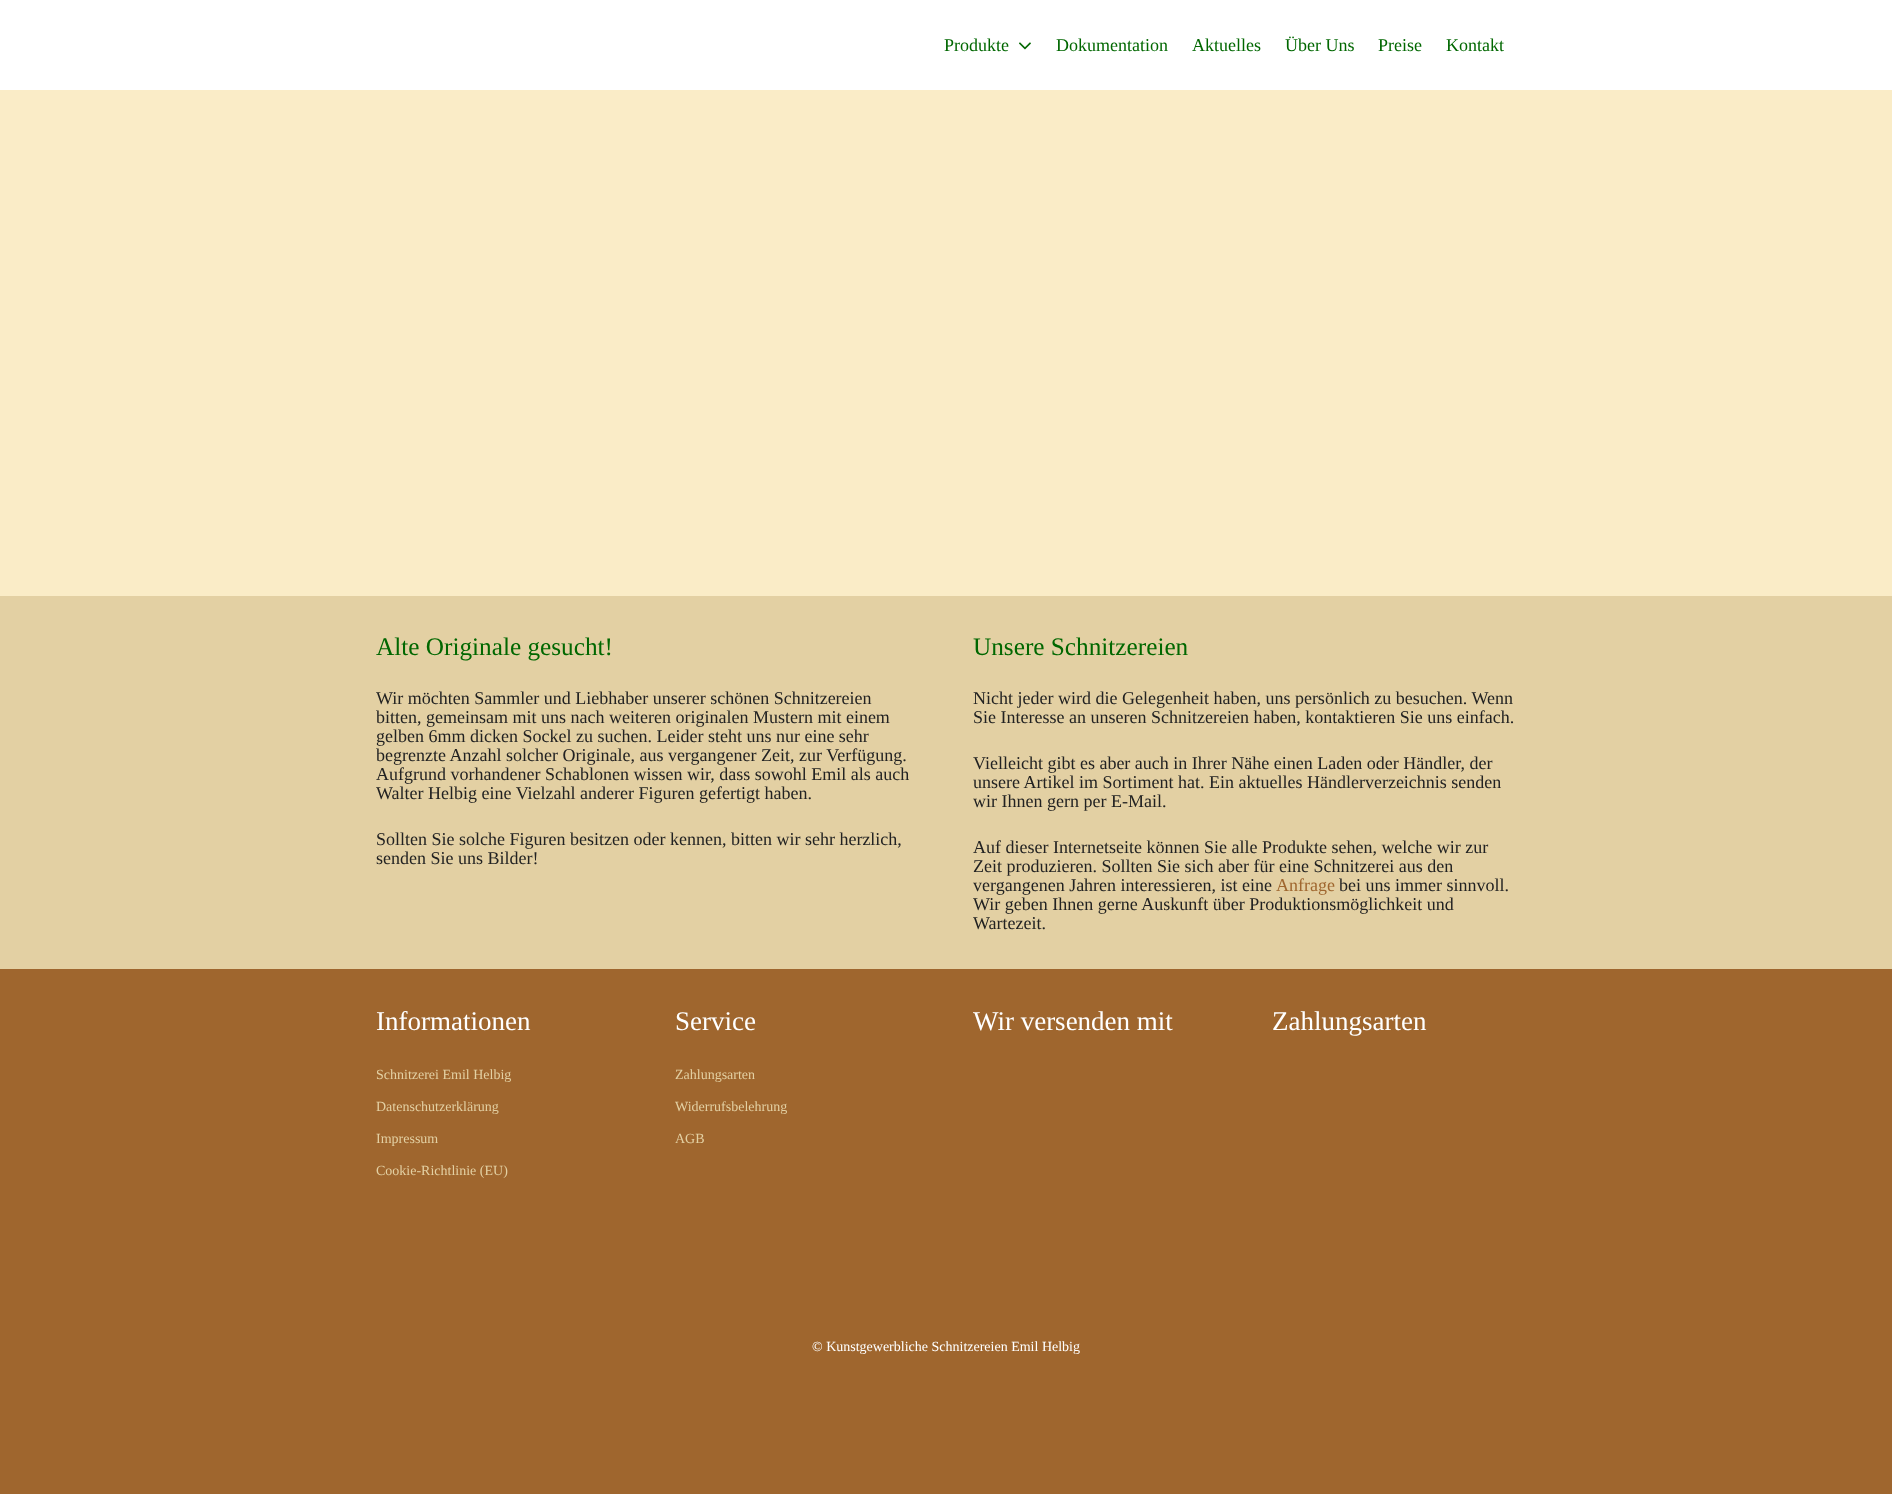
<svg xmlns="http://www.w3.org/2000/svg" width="1892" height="1494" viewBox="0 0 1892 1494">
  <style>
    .t1 { font: 18px Liberation Serif; fill: #016700; }
    .t2 { font: 25.25px Liberation Serif; fill: #016700; }
    .t3 { font: 18px Liberation Serif; fill: #222; }
    .t4 { font: 18px Liberation Serif; fill: #9f662e; }
    .t5 { font: 27px Liberation Serif; fill: #fff; }
    .t6 { font: 14px Liberation Serif; fill: #e3d0a3; }
    .t7 { font: 14px Liberation Serif; fill: #fff; }
  </style>
  <rect width="100%" height="100%" fill="#faecc7"/>
  <rect x="0" y="0" width="1892" height="90" fill="#fff"/>
  <text x="944" y="51" class="t1">Produkte</text>
  <image x="1019" y="42" width="12" height="8" href="images/1.png"/>
  <text x="1056" y="51" class="t1">Dokumentation</text>
  <text x="1192" y="51" class="t1">Aktuelles</text>
  <text x="1285" y="51" class="t1">Über Uns</text>
  <text x="1378" y="51" class="t1">Preise</text>
  <text x="1446" y="51" class="t1">Kontakt</text>
  <rect x="0" y="596" width="1892" height="373" fill="#e3d0a3"/>
  <text x="376" y="655" class="t2">Alte Originale gesucht!</text>
  <text x="376" y="704" class="t3">Wir möchten Sammler und Liebhaber unserer schönen Schnitzereien</text>
  <text x="376" y="723" class="t3">bitten, gemeinsam mit uns nach weiteren originalen Mustern mit einem</text>
  <text x="376" y="742" class="t3">gelben 6mm dicken Sockel zu suchen. Leider steht uns nur eine sehr</text>
  <text x="376" y="761" class="t3">begrenzte Anzahl solcher Originale, aus vergangener Zeit, zur Verfügung.</text>
  <text x="376" y="780" class="t3">Aufgrund vorhandener Schablonen wissen wir, dass sowohl Emil als auch</text>
  <text x="376" y="799" class="t3">Walter Helbig eine Vielzahl anderer Figuren gefertigt haben.</text>
  <text x="376" y="845" class="t3">Sollten Sie solche Figuren besitzen oder kennen, bitten wir sehr herzlich,</text>
  <text x="376" y="864" class="t3">senden Sie uns Bilder!</text>
  <text x="973" y="655" class="t2">Unsere Schnitzereien</text>
  <text x="973" y="704" class="t3">Nicht jeder wird die Gelegenheit haben, uns persönlich zu besuchen. Wenn</text>
  <text x="973" y="723" class="t3">Sie Interesse an unseren Schnitzereien haben, kontaktieren Sie uns einfach.</text>
  <text x="973" y="769" class="t3">Vielleicht gibt es aber auch in Ihrer Nähe einen Laden oder Händler, der</text>
  <text x="973" y="788" class="t3">unsere Artikel im Sortiment hat. Ein aktuelles Händlerverzeichnis senden</text>
  <text x="973" y="807" class="t3">wir Ihnen gern per E-Mail.</text>
  <text x="973" y="853" class="t3">Auf dieser Internetseite können Sie alle Produkte sehen, welche wir zur</text>
  <text x="973" y="872" class="t3">Zeit produzieren. Sollten Sie sich aber für eine Schnitzerei aus den</text>
  <text x="973" y="891" class="t3">vergangenen Jahren interessieren, ist eine</text>
  <text x="1276" y="891" class="t4">Anfrage</text>
  <text x="1339" y="891" class="t3">bei uns immer sinnvoll.</text>
  <text x="973" y="910" class="t3">Wir geben Ihnen gerne Auskunft über Produktionsmöglichkeit und</text>
  <text x="973" y="929" class="t3">Wartezeit.</text>
  <rect x="0" y="969" width="1892" height="525" fill="#9f662e"/>
  <text x="376" y="1030" class="t5">Informationen</text>
  <text x="376" y="1079" class="t6">Schnitzerei Emil Helbig</text>
  <text x="376" y="1111" class="t6">Datenschutzerklärung</text>
  <text x="376" y="1143" class="t6">Impressum</text>
  <text x="376" y="1175" class="t6">Cookie-Richtlinie (EU)</text>
  <text x="675" y="1030" class="t5">Service</text>
  <text x="675" y="1079" class="t6">Zahlungsarten</text>
  <text x="675" y="1111" class="t6">Widerrufsbelehrung</text>
  <text x="675" y="1143" class="t6">AGB</text>
  <text x="973" y="1030" class="t5">Wir versenden mit</text>
  <text x="1272" y="1030" class="t5">Zahlungsarten</text>
  <text x="812" y="1351" class="t7">© Kunstgewerbliche Schnitzereien Emil Helbig</text>
</svg>
